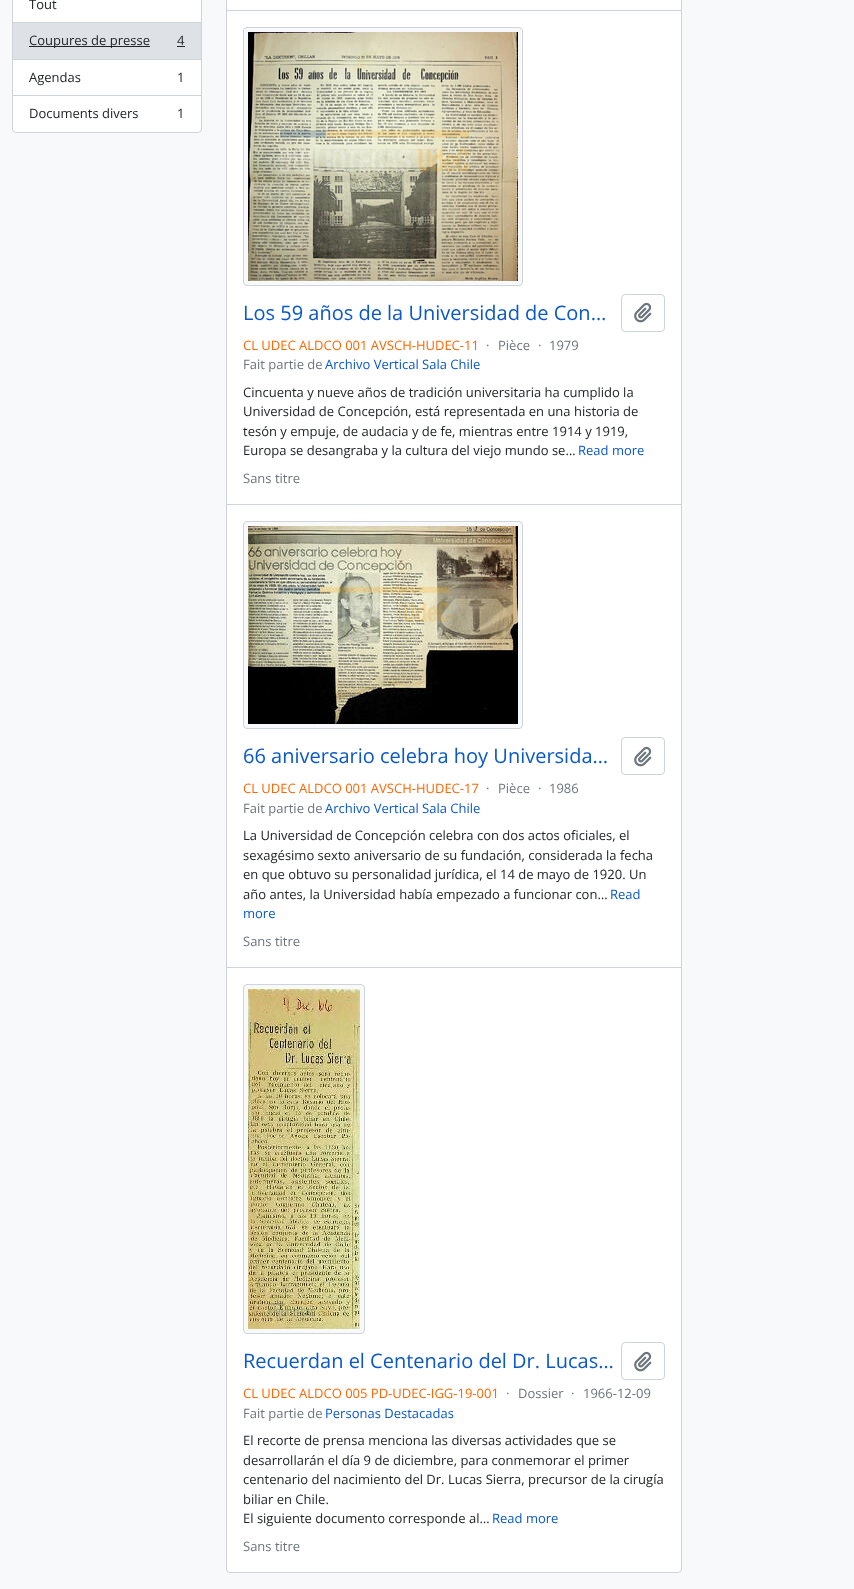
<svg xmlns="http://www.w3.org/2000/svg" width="854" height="1589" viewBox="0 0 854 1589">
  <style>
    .t1 { font: 13px Open Sans; fill: #212529; }
    .t2 { font: 20px Open Sans; fill: #0a58ca; }
    .t3 { font: 13px Open Sans; fill: #f60; }
    .t4 { font: 13px Open Sans; fill: #6c757d; }
    .t5 { font: 13px Open Sans; fill: #0a58ca; }
  </style>
  <rect width="100%" height="100%" fill="#f8f9fa"/>
  <rect x="12.5" y="-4.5" width="189" height="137" rx="3.5" fill="#fff" stroke="#ced4da"/>
  <rect x="13" y="22" width="188" height="1" fill="#ced4da"/>
  <text x="29" y="9" class="t1">Tout</text>
  <rect x="13" y="23" width="188" height="36" fill="#dee2e6"/>
  <rect x="13" y="59" width="188" height="1" fill="#ced4da"/>
  <rect x="29" y="46" width="121" height="1" fill="#212529"/>
  <text x="29" y="45" class="t1">Coupures de presse</text>
  <text x="177" y="45" class="t1">4</text>
  <rect x="177" y="46" width="8" height="1" fill="#212529"/>
  <rect x="13" y="95" width="188" height="1" fill="#ced4da"/>
  <text x="29" y="82" class="t1">Agendas</text>
  <text x="177" y="82" class="t1">1</text>
  <path d="M13 96H201V128C201 130 199 132 197 132H17C15 132 13 130 13 128Z" fill="#fff"/>
  <text x="29" y="118" class="t1">Documents divers</text>
  <text x="177" y="118" class="t1">1</text>
  <rect x="226.5" y="-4.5" width="455" height="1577" rx="3.5" fill="#fff" stroke="#ced4da"/>
  <rect x="227" y="10" width="454" height="1" fill="#ced4da"/>
  <rect x="227" y="504" width="454" height="1" fill="#ced4da"/>
  <rect x="243.5" y="27.5" width="279" height="258" rx="3.5" fill="#f8f9fa" stroke="#ced4da"/>
  <image x="248" y="32" width="270" height="249" href="images/1.png"/>
  <text x="243" y="320" class="t2">Los 59 años de la Universidad de Con…</text>
  <rect x="621.5" y="294.5" width="43" height="37" rx="3.5" fill="none" stroke="#ced4da"/>
  <image x="634" y="302" width="18" height="21" href="images/2.png"/>
  <text x="243" y="350" class="t3">CL UDEC ALDCO 001 AVSCH-HUDEC-11</text>
  <text x="486" y="350" class="t4">·</text>
  <text x="498" y="350" class="t4">Pièce</text>
  <text x="538" y="350" class="t4">·</text>
  <text x="549" y="350" class="t4">1979</text>
  <text x="243" y="369" class="t4">Fait partie de</text>
  <text x="325" y="369" class="t5">Archivo Vertical Sala Chile</text>
  <text x="243" y="397" class="t1">Cincuenta y nueve años de tradición universitaria ha cumplido la</text>
  <text x="243" y="416" class="t1">Universidad de Concepción, está representada en una historia de</text>
  <text x="243" y="436" class="t1">tesón y empuje, de audacia y de fe, mientras entre 1914 y 1919,</text>
  <text x="243" y="455" class="t1">Europa se desangraba y la cultura del viejo mundo se…</text>
  <text x="578" y="455" class="t5">Read more</text>
  <text x="243" y="483" class="t4">Sans titre</text>
  <rect x="227" y="967" width="454" height="1" fill="#ced4da"/>
  <rect x="243.5" y="521.5" width="279" height="207" rx="3.5" fill="#f8f9fa" stroke="#ced4da"/>
  <image x="248" y="526" width="270" height="198" href="images/3.png"/>
  <text x="243" y="763" class="t2">66 aniversario celebra hoy Universida…</text>
  <rect x="621.5" y="737.5" width="43" height="37" rx="3.5" fill="none" stroke="#ced4da"/>
  <image x="634" y="746" width="18" height="21" href="images/2.png"/>
  <text x="243" y="793" class="t3">CL UDEC ALDCO 001 AVSCH-HUDEC-17</text>
  <text x="486" y="793" class="t4">·</text>
  <text x="498" y="793" class="t4">Pièce</text>
  <text x="538" y="793" class="t4">·</text>
  <text x="549" y="793" class="t4">1986</text>
  <text x="243" y="813" class="t4">Fait partie de</text>
  <text x="325" y="813" class="t5">Archivo Vertical Sala Chile</text>
  <text x="243" y="840" class="t1">La Universidad de Concepción celebra con dos actos oficiales, el</text>
  <text x="243" y="860" class="t1">sexagésimo sexto aniversario de su fundación, considerada la fecha</text>
  <text x="243" y="879" class="t1">en que obtuvo su personalidad jurídica, el 14 de mayo de 1920. Un</text>
  <text x="243" y="899" class="t1">año antes, la Universidad había empezado a funcionar con…</text>
  <text x="610" y="899" class="t5">Read</text>
  <text x="243" y="918" class="t5">more</text>
  <text x="243" y="946" class="t4">Sans titre</text>
  <rect x="243.5" y="984.5" width="121" height="349" rx="3.5" fill="#f8f9fa" stroke="#ced4da"/>
  <image x="248" y="989" width="112" height="340" href="images/4.png"/>
  <text x="243" y="1368" class="t2">Recuerdan el Centenario del Dr. Lucas…</text>
  <rect x="621.5" y="1342.5" width="43" height="37" rx="3.5" fill="none" stroke="#ced4da"/>
  <image x="634" y="1351" width="18" height="21" href="images/2.png"/>
  <text x="243" y="1398" class="t3">CL UDEC ALDCO 005 PD-UDEC-IGG-19-001</text>
  <text x="506" y="1398" class="t4">·</text>
  <text x="518" y="1398" class="t4">Dossier</text>
  <text x="571" y="1398" class="t4">·</text>
  <text x="583" y="1398" class="t4">1966-12-09</text>
  <text x="243" y="1418" class="t4">Fait partie de</text>
  <text x="325" y="1418" class="t5">Personas Destacadas</text>
  <text x="243" y="1445" class="t1">El recorte de prensa menciona las diversas actividades que se</text>
  <text x="243" y="1465" class="t1">desarrollarán el día 9 de diciembre, para conmemorar el primer</text>
  <text x="243" y="1484" class="t1">centenario del nacimiento del Dr. Lucas Sierra, precursor de la cirugía</text>
  <text x="243" y="1504" class="t1">biliar en Chile.</text>
  <text x="243" y="1523" class="t1">El siguiente documento corresponde al…</text>
  <text x="492" y="1523" class="t5">Read more</text>
  <text x="243" y="1551" class="t4">Sans titre</text>
</svg>
